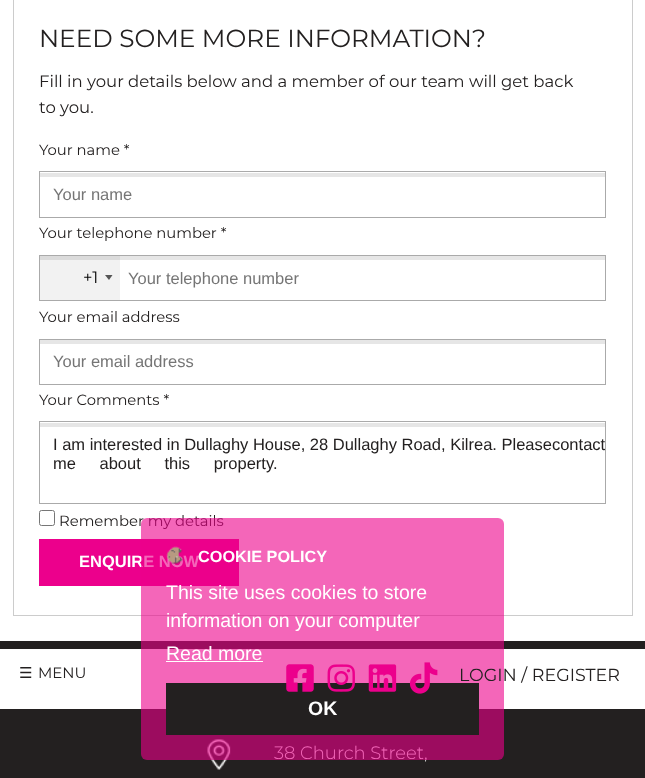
<svg xmlns="http://www.w3.org/2000/svg" width="645" height="778" viewBox="0 0 645 778">
  <style>
    .t1 { font: 24.75px Montserrat; fill: #232020; }
    .t2 { font: 16.5px Montserrat; fill: #232020; }
    .t3 { font: 14.8px Montserrat; fill: #232020; }
    .t4 { font: 16.5px Liberation Sans; fill: #757575; }
    .t5 { font: 16.5px Montserrat; fill: #000; }
    .t6 { font: 16.5px Liberation Sans; fill: #232020; }
    .t7 { font: bold 16.5px Liberation Sans; fill: #fff; }
    .t8 { font: 15px DejaVu Sans; fill: #232020; }
    .t9 { font: 15px Montserrat; fill: #232020; }
    .t10 { font: 300 18px Montserrat; fill: #fff; }
    .t11 { font: 17.5px Montserrat; fill: #232020; }
    .t12 { font: bold 16.25px Liberation Sans; fill: #fff; }
    .t13 { font: 19.5px Liberation Sans; fill: #fff; }
    .t14 { font: bold 19.5px Liberation Sans; fill: #fff; }
  </style>
  <defs>
    <clipPath id="clip1"><path d="M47 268H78V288H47ZM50 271H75V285H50Z" clip-rule="evenodd"/></clipPath>
  </defs>
  <rect width="100%" height="100%" fill="#fff"/>
  <rect x="40" y="260" width="80" height="40" fill="#f2f2f2"/>
  <rect x="13.5" y="-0.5" width="619" height="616" fill="none" stroke="#ccc"/>
  <text x="39" y="47" class="t1">NEED SOME MORE INFORMATION?</text>
  <text x="39" y="87" class="t2">Fill in your details below and a member of our team will get back</text>
  <text x="39" y="113" class="t2">to you.</text>
  <text x="39" y="155" class="t3">Your name *</text>
  <rect x="40" y="173" width="565" height="4" fill="#e6e6e6"/>
  <rect x="39.5" y="171.5" width="566" height="46" fill="none" stroke="#aaa"/>
  <text x="53" y="200" class="t4">Your name</text>
  <text x="39" y="238" class="t3">Your telephone number *</text>
  <rect x="120" y="256" width="485" height="4" fill="#e6e6e6"/>
  <rect x="40" y="256" width="80" height="4" fill="#dbdbdb"/>
  <rect x="39.5" y="255.5" width="566" height="45" fill="none" stroke="#aaa"/>
  <g clip-path="url(#clip1)">
    <rect x="50" y="271" width="25" height="14" fill="#888" filter="blur(0.5px)"/>
  </g>
  <text x="83" y="283" class="t5">+1</text>
  <path d="M105 275H112.5L109 280Z" fill="#555"/>
  <text x="128" y="284" class="t4">Your telephone number</text>
  <text x="39" y="322" class="t3">Your email address</text>
  <rect x="40" y="340" width="565" height="4" fill="#e6e6e6"/>
  <rect x="39.5" y="339.5" width="566" height="45" fill="none" stroke="#aaa"/>
  <text x="53" y="367" class="t4">Your email address</text>
  <text x="39" y="405" class="t3">Your Comments *</text>
  <rect x="40" y="423" width="565" height="4" fill="#e6e6e6"/>
  <rect x="39.5" y="421.5" width="566" height="82" fill="none" stroke="#aaa"/>
  <text x="53" y="450" class="t6">I am interested in Dullaghy House, 28 Dullaghy Road, Kilrea. Pleasecontact</text>
  <text x="53" y="469" word-spacing="19" class="t6">me about this property.</text>
  <rect x="39.5" y="510.5" width="15" height="15" rx="2" fill="none" stroke="#767676"/>
  <text x="59" y="526" class="t3">Remember my details</text>
  <rect x="39" y="539" width="200" height="47" fill="#ec008c"/>
  <text x="79" y="567" class="t7">ENQUIRE NOW</text>
  <rect x="0" y="641" width="645" height="8" fill="#232020"/>
  <text x="19" y="678" class="t8">☰</text>
  <text x="38" y="678" class="t9">MENU</text>
  <rect x="0" y="709" width="645" height="69" fill="#232020"/>
  <image x="207" y="739" width="24" height="31" href="images/5.png"/>
  <text x="274" y="759" class="t10">38 Church Street,</text>
  <rect x="141" y="518" width="363" height="242" rx="6" fill="#ec008b99"/>
  <rect x="166" y="683" width="313" height="52" fill="#232020"/>
  <image x="286" y="664" width="28" height="28" href="images/1.png"/>
  <image x="327" y="664" width="28" height="28" href="images/2.png"/>
  <image x="368" y="664" width="29" height="28" href="images/3.png"/>
  <image x="409" y="662" width="29" height="32" href="images/4.png"/>
  <text x="459" y="681" class="t11">LOGIN / REGISTER</text>
  <image x="166" y="546" width="17" height="18" href="images/6.png"/>
  <text x="198" y="562" class="t12">COOKIE POLICY</text>
  <text x="166" y="599" class="t13">This site uses cookies to store</text>
  <text x="166" y="627" class="t13">information on your computer</text>
  <text x="166" y="660" class="t13">Read more</text>
  <rect x="166" y="661" width="97" height="1" fill="#fff"/>
  <text x="308" y="715" class="t14">OK</text>
</svg>
